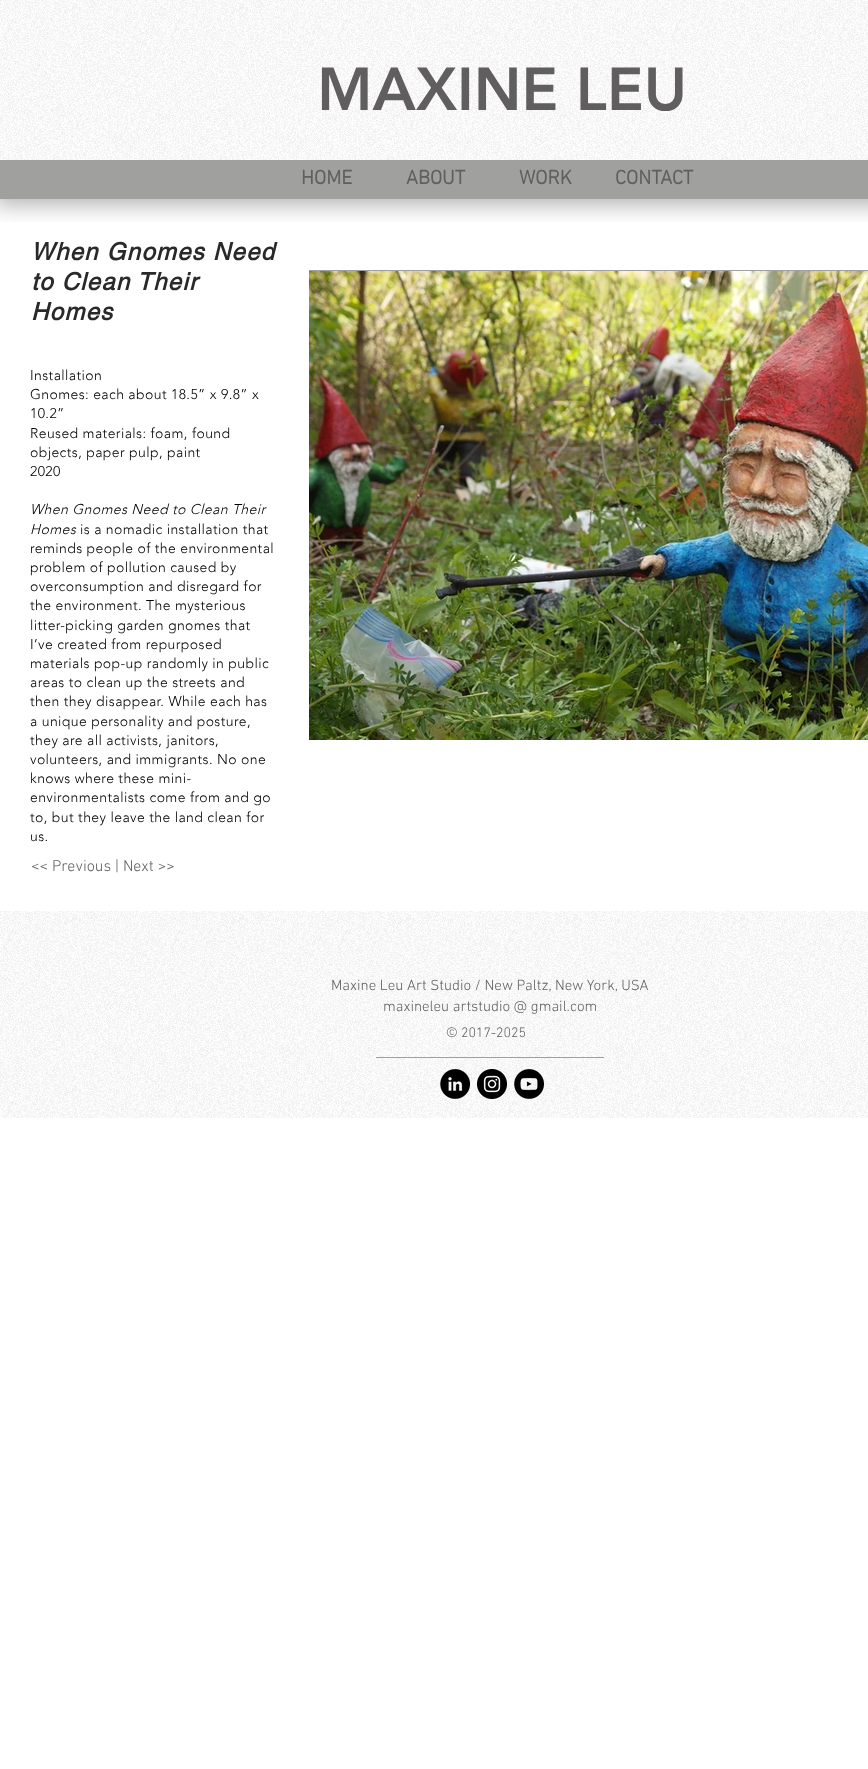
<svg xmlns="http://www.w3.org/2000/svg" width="868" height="1769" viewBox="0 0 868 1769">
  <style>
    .t1 { font: 900 60px 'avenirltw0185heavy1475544'; fill: #605e5e; }
    .t2 { font: bold 20px 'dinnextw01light'; fill: #605e5e; }
    .t3 { font: italic bold 24px helvetica; letter-spacing: 1.25px; fill: #292929; }
    .t4 { font: 300 14px 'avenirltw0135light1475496'; letter-spacing: 0.4px; fill: #000; }
    .t5 { font: italic 300 14px 'avenirltw0135light1475496'; letter-spacing: 0.4px; fill: #000; }
    .t6 { font: 300 16px 'dinnextw01light'; fill: #605e5e; }
    .t7 { font: 300 15px 'dinnextw01light'; fill: #605e5e; }
    .t8 { font: 300 14px 'dinnextw01light'; fill: #605e5e; }
  </style>
  <defs>
    <clipPath id="clip1"><rect x="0" y="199" width="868" height="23"/></clipPath>
  </defs>
  <rect width="100%" height="100%" fill="#fff"/>
  <g clip-path="url(#clip1)">
    <rect x="-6" y="-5" width="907" height="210" fill="#0000004d" filter="blur(11px)"/>
  </g>
  <image x="0" y="0" width="868" height="160" href="images/1.png"/>
  <text x="317" y="110" class="t1">MAXINE LEU</text>
  <rect x="0" y="160" width="868" height="39" fill="#a0a09f"/>
  <text x="301" y="184" class="t2">HOME</text>
  <text x="406" y="184" class="t2">ABOUT</text>
  <text x="519" y="184" class="t2">WORK</text>
  <text x="615" y="184" class="t2">CONTACT</text>
  <text x="31" y="260" class="t3">When Gnomes Need</text>
  <text x="31" y="290" class="t3">to Clean Their</text>
  <text x="31" y="320" class="t3">Homes</text>
  <rect x="309" y="270" width="559" height="1" fill="#a0a09f"/>
  <image x="309" y="271" width="559" height="469" href="images/2.png"/>
  <text x="30" y="380" class="t4">Installation</text>
  <text x="30" y="399" class="t4">Gnomes: each about 18.5” x 9.8” x</text>
  <text x="30" y="418" class="t4">10.2”</text>
  <text x="30" y="438" class="t4">Reused materials: foam, found</text>
  <text x="30" y="457" class="t4">objects, paper pulp, paint</text>
  <text x="30" y="476" class="t4">2020</text>
  <text x="30" y="514" class="t5">When Gnomes Need to Clean Their</text>
  <text x="30" y="534" class="t5">Homes</text>
  <text x="80" y="534" class="t4">is a nomadic installation that</text>
  <text x="30" y="553" class="t4">reminds people of the environmental</text>
  <text x="30" y="572" class="t4">problem of pollution caused by</text>
  <text x="30" y="591" class="t4">overconsumption and disregard for</text>
  <text x="30" y="610" class="t4">the environment. The mysterious</text>
  <text x="30" y="630" class="t4">litter-picking garden gnomes that</text>
  <text x="30" y="649" class="t4">I’ve created from repurposed</text>
  <text x="30" y="668" class="t4">materials pop-up randomly in public</text>
  <text x="30" y="687" class="t4">areas to clean up the streets and</text>
  <text x="30" y="706" class="t4">then they disappear. While each has</text>
  <text x="30" y="726" class="t4">a unique personality and posture,</text>
  <text x="30" y="745" class="t4">they are all activists, janitors,</text>
  <text x="30" y="764" class="t4">volunteers, and immigrants. No one</text>
  <text x="30" y="783" class="t4">knows where these mini-</text>
  <text x="30" y="802" class="t4">environmentalists come from and go</text>
  <text x="30" y="822" class="t4">to, but they leave the land clean for</text>
  <text x="30" y="841" class="t4">us.</text>
  <text x="31" y="871" class="t6">&lt;&lt; Previous | Next &gt;&gt;</text>
  <image x="0" y="911" width="868" height="207" href="images/3.png"/>
  <text x="331" y="990" class="t7">Maxine Leu Art Studio / New Paltz, New York, USA</text>
  <text x="383" y="1011" class="t7">maxineleu artstudio @ gmail.com</text>
  <text x="446" y="1037" class="t8">© 2017-2025</text>
  <rect x="376" y="1057" width="228" height="1" fill="#a0a09f"/>
  <image x="440" y="1069" width="30" height="30" href="images/4.png"/>
  <image x="477" y="1069" width="30" height="30" href="images/5.png"/>
  <image x="514" y="1069" width="30" height="30" href="images/6.png"/>
</svg>
